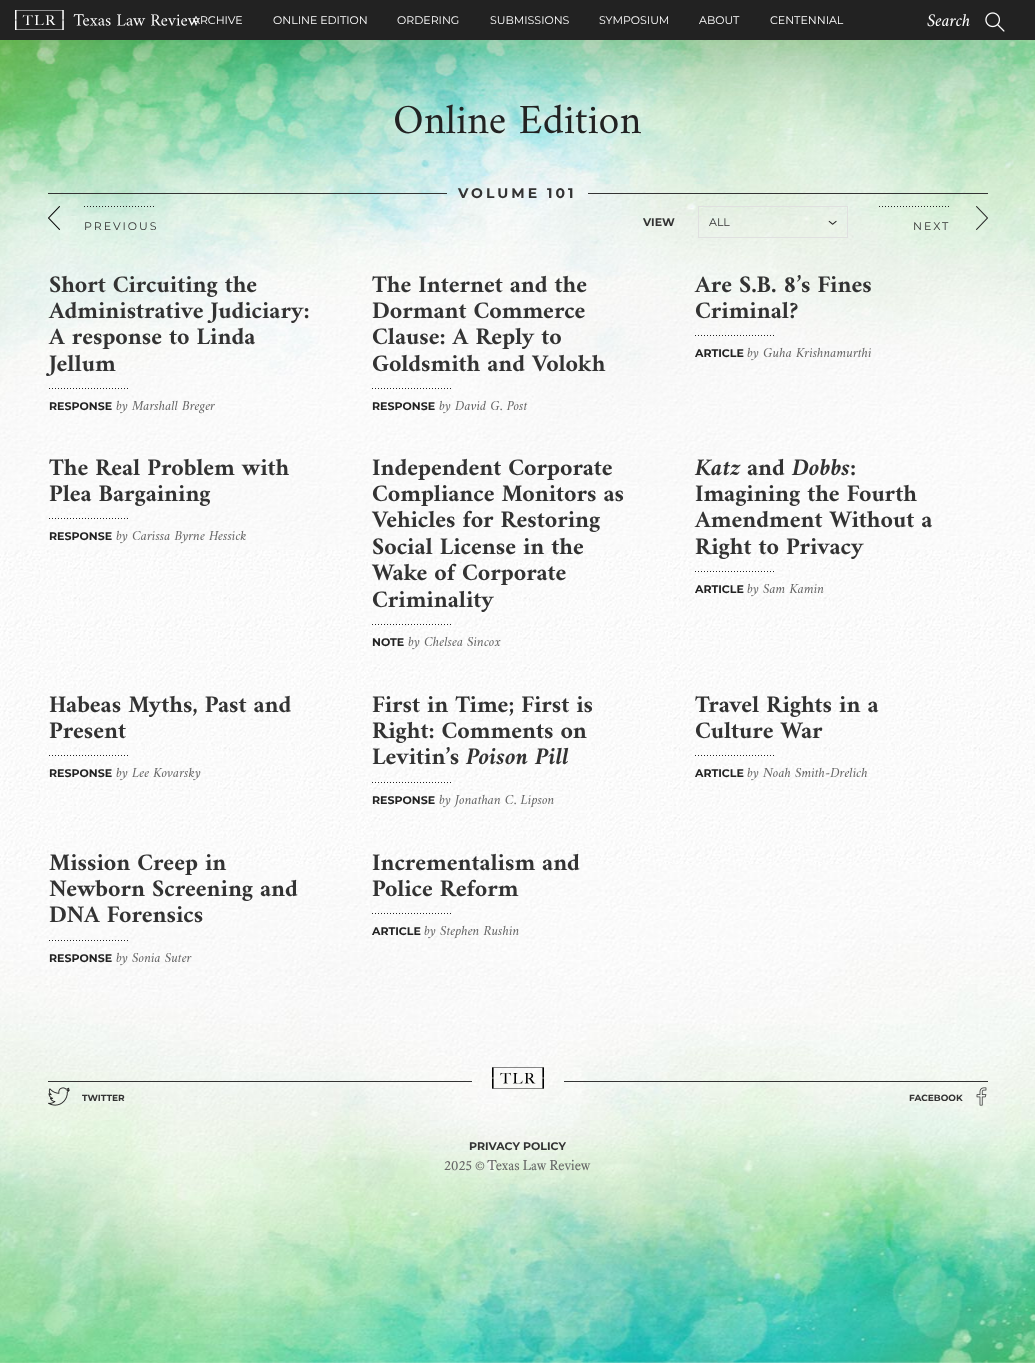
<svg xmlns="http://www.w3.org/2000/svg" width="1035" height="1363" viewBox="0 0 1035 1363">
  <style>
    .t1 { font: 11px Montserrat; fill: #fff; }
    .t2 { font: italic 18px Amiri; fill: #fff; }
    .t3 { font: 42px Amiri; fill: #222; }
    .t4 { font: bold 14px Montserrat; letter-spacing: 3px; fill: #333; }
    .t5 { font: 11px Montserrat; letter-spacing: 2px; fill: #333; }
    .t6 { font: bold 11px Montserrat; fill: #333; }
    .t7 { font: 11px Montserrat; fill: #333; }
    .t8 { font: bold 24px Amiri; fill: #333; }
    .t9 { font: bold 11px Montserrat; fill: #222; }
    .t10 { font: italic 14px Amiri; fill: #666; }
    .t11 { font: italic bold 24px Amiri; fill: #333; }
    .t12 { font: bold 9px Montserrat; fill: #333; }
    .t13 { font: 14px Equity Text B; fill: #666; }
  </style>
  <rect width="100%" height="100%" fill="#fff"/>
  <image x="0" y="40" width="1035" height="1323" href="images/1.png"/>
  <rect x="0" y="0" width="1035" height="40" fill="#00000040" filter="blur(40px)"/>
  <rect x="0" y="0" width="1035" height="40" fill="#222"/>
  <image x="15" y="10" width="185" height="20" href="images/2.png"/>
  <text x="192" y="24" class="t1">ARCHIVE</text>
  <text x="273" y="24" class="t1">ONLINE EDITION</text>
  <text x="397" y="24" class="t1">ORDERING</text>
  <text x="490" y="24" class="t1">SUBMISSIONS</text>
  <text x="599" y="24" class="t1">SYMPOSIUM</text>
  <text x="699" y="24" class="t1">ABOUT</text>
  <text x="770" y="24" class="t1">CENTENNIAL</text>
  <text x="927" y="26" class="t2">Search</text>
  <image x="985" y="12" width="20" height="20" href="images/3.png"/>
  <text x="393" y="133" class="t3">Online Edition</text>
  <rect x="48" y="193" width="399" height="1" fill="#333"/>
  <text x="458" y="198" class="t4">VOLUME 101</text>
  <rect x="588" y="193" width="400" height="1" fill="#333"/>
  <image x="48" y="206" width="12" height="24" href="images/4.png"/>
  <image x="84" y="206" width="70" height="1" href="images/5.png"/>
  <text x="84" y="230" class="t5">PREVIOUS</text>
  <text x="643" y="226" class="t6">VIEW</text>
  <image x="828" y="220" width="9" height="5" href="images/6.png"/>
  <rect x="698.5" y="206.5" width="149" height="31" fill="none" stroke="#e0e0e0"/>
  <text x="709" y="226" class="t7">ALL</text>
  <image x="879" y="206" width="70" height="1" href="images/7.png"/>
  <text x="913" y="230" class="t5">NEXT</text>
  <image x="976" y="206" width="12" height="24" href="images/8.png"/>
  <text x="49" y="292" class="t8">Short Circuiting the</text>
  <text x="49" y="318" class="t8">Administrative Judiciary:</text>
  <text x="49" y="344" class="t8">A response to Linda</text>
  <text x="49" y="371" class="t8">Jellum</text>
  <image x="49" y="388" width="79" height="1" href="images/9.png"/>
  <text x="49" y="410" class="t9">RESPONSE</text>
  <text x="116" y="410" class="t10">by Marshall Breger</text>
  <text x="372" y="292" class="t8">The Internet and the</text>
  <text x="372" y="318" class="t8">Dormant Commerce</text>
  <text x="372" y="344" class="t8">Clause: A Reply to</text>
  <text x="372" y="371" class="t8">Goldsmith and Volokh</text>
  <image x="372" y="388" width="79" height="1" href="images/10.png"/>
  <text x="372" y="410" class="t9">RESPONSE</text>
  <text x="439" y="410" class="t10">by David G. Post</text>
  <text x="695" y="292" class="t8">Are S.B. 8’s Fines</text>
  <text x="695" y="318" class="t8">Criminal?</text>
  <image x="695" y="335" width="79" height="1" href="images/11.png"/>
  <text x="695" y="357" class="t9">ARTICLE</text>
  <text x="747" y="357" class="t10">by Guha Krishnamurthi</text>
  <text x="49" y="475" class="t8">The Real Problem with</text>
  <text x="49" y="501" class="t8">Plea Bargaining</text>
  <image x="49" y="518" width="79" height="1" href="images/12.png"/>
  <text x="49" y="540" class="t9">RESPONSE</text>
  <text x="116" y="540" class="t10">by Carissa Byrne Hessick</text>
  <text x="372" y="475" class="t8">Independent Corporate</text>
  <text x="372" y="501" class="t8">Compliance Monitors as</text>
  <text x="372" y="527" class="t8">Vehicles for Restoring</text>
  <text x="372" y="554" class="t8">Social License in the</text>
  <text x="372" y="580" class="t8">Wake of Corporate</text>
  <text x="372" y="607" class="t8">Criminality</text>
  <image x="372" y="624" width="79" height="1" href="images/13.png"/>
  <text x="372" y="646" class="t9">NOTE</text>
  <text x="408" y="646" class="t10">by Chelsea Sincox</text>
  <text x="695" y="475" class="t11">Katz</text>
  <text x="747" y="475" class="t8">and</text>
  <text x="792" y="475" class="t11">Dobbs</text>
  <text x="850" y="475" class="t8">:</text>
  <text x="695" y="501" class="t8">Imagining the Fourth</text>
  <text x="695" y="527" class="t8">Amendment Without a</text>
  <text x="695" y="554" class="t8">Right to Privacy</text>
  <image x="695" y="571" width="79" height="1" href="images/14.png"/>
  <text x="695" y="593" class="t9">ARTICLE</text>
  <text x="747" y="593" class="t10">by Sam Kamin</text>
  <text x="49" y="712" class="t8">Habeas Myths, Past and</text>
  <text x="49" y="738" class="t8">Present</text>
  <image x="49" y="755" width="79" height="1" href="images/15.png"/>
  <text x="49" y="777" class="t9">RESPONSE</text>
  <text x="116" y="777" class="t10">by Lee Kovarsky</text>
  <text x="372" y="712" class="t8">First in Time; First is</text>
  <text x="372" y="738" class="t8">Right: Comments on</text>
  <text x="372" y="764" class="t8">Levitin’s</text>
  <text x="466" y="764" class="t11">Poison Pill</text>
  <image x="372" y="782" width="79" height="1" href="images/16.png"/>
  <text x="372" y="804" class="t9">RESPONSE</text>
  <text x="439" y="804" class="t10">by Jonathan C. Lipson</text>
  <text x="695" y="712" class="t8">Travel Rights in a</text>
  <text x="695" y="738" class="t8">Culture War</text>
  <image x="695" y="755" width="79" height="1" href="images/17.png"/>
  <text x="695" y="777" class="t9">ARTICLE</text>
  <text x="747" y="777" class="t10">by Noah Smith-Drelich</text>
  <text x="49" y="870" class="t8">Mission Creep in</text>
  <text x="49" y="896" class="t8">Newborn Screening and</text>
  <text x="49" y="922" class="t8">DNA Forensics</text>
  <image x="49" y="940" width="79" height="1" href="images/18.png"/>
  <text x="49" y="962" class="t9">RESPONSE</text>
  <text x="116" y="962" class="t10">by Sonia Suter</text>
  <text x="372" y="870" class="t8">Incrementalism and</text>
  <text x="372" y="896" class="t8">Police Reform</text>
  <image x="372" y="913" width="79" height="1" href="images/19.png"/>
  <text x="372" y="935" class="t9">ARTICLE</text>
  <text x="424" y="935" class="t10">by Stephen Rushin</text>
  <rect x="48" y="1081" width="424" height="1" fill="#333"/>
  <image x="492" y="1067" width="52" height="22" href="images/20.png"/>
  <rect x="564" y="1081" width="424" height="1" fill="#333"/>
  <image x="48" y="1087" width="22" height="19" href="images/21.png"/>
  <text x="82" y="1101" class="t12">TWITTER</text>
  <text x="909" y="1101" class="t12">FACEBOOK</text>
  <image x="976" y="1087" width="11" height="19" href="images/22.png"/>
  <text x="469" y="1150" class="t6">PRIVACY POLICY</text>
  <text x="444" y="1170" class="t13">2025 © Texas Law Review</text>
</svg>
